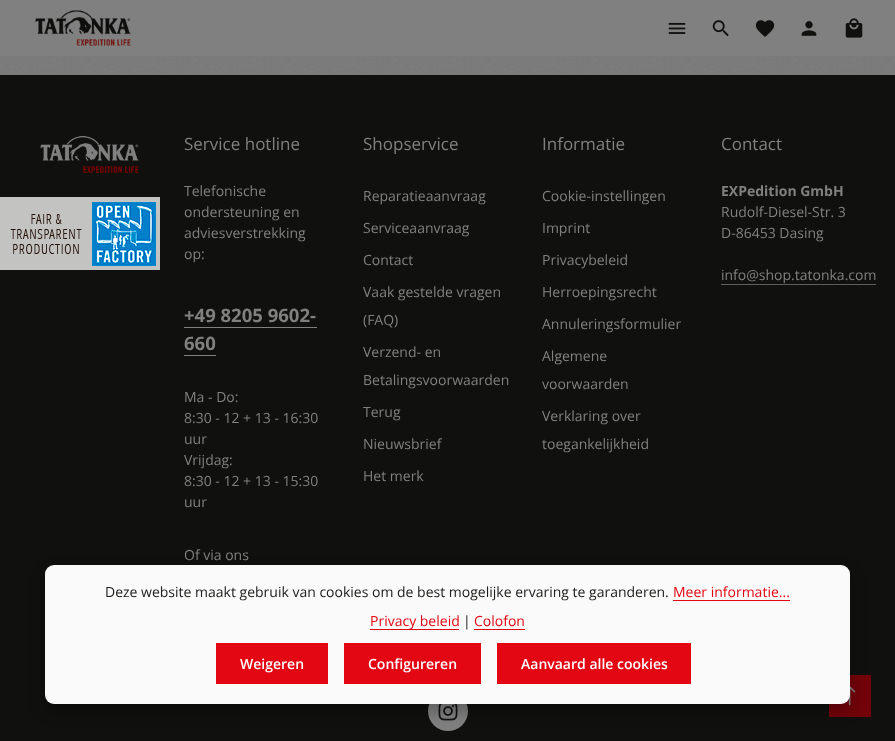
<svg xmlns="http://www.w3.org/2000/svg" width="895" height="741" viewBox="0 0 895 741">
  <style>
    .t1 { font: 17px Open Sans; fill: #808080; }
    .t2 { font: 14px Open Sans; fill: #808080; }
    .t3 { font: bold 18.5px Open Sans; fill: #808080; }
    .t4 { font: bold 14px Open Sans; fill: #808080; }
    .t5 { font: 14px Open Sans; fill: #20201e; }
    .t6 { font: 14px Open Sans; fill: #e30613; }
    .t7 { font: 600 14px Open Sans; fill: #fff; }
  </style>
  <rect width="100%" height="100%" fill="#7d7d7d"/>
  <image x="0" y="56" width="895" height="19" href="images/1.png"/>
  <rect x="0" y="75" width="895" height="666" fill="#10100f"/>
  <image x="0" y="197" width="160" height="73" href="images/2.png"/>
  <rect x="0" y="0" width="895" height="56" fill="#808080"/>
  <image x="35" y="10" width="96" height="36" href="images/3.png"/>
  <image x="668" y="22" width="18" height="12" href="images/4.png"/>
  <image x="712" y="20" width="17" height="17" href="images/5.png"/>
  <image x="755" y="20" width="20" height="17" href="images/6.png"/>
  <image x="801" y="21" width="16" height="15" href="images/7.png"/>
  <image x="845" y="18" width="18" height="20" href="images/8.png"/>
  <image x="40" y="136" width="99" height="37" href="images/9.png"/>
  <text x="184" y="150" class="t1">Service hotline</text>
  <text x="184" y="196" class="t2">Telefonische</text>
  <text x="184" y="217" class="t2">ondersteuning en</text>
  <text x="184" y="238" class="t2">adviesverstrekking</text>
  <text x="184" y="259" class="t2">op:</text>
  <text x="184" y="322" class="t3">+49 8205 9602-</text>
  <rect x="184" y="327" width="133" height="1" fill="#808080"/>
  <text x="184" y="350" class="t3">660</text>
  <rect x="184" y="355" width="32" height="1" fill="#808080"/>
  <text x="184" y="402" class="t2">Ma - Do:</text>
  <text x="184" y="423" class="t2">8:30 - 12 + 13 - 16:30</text>
  <text x="184" y="444" class="t2">uur</text>
  <text x="184" y="465" class="t2">Vrijdag:</text>
  <text x="184" y="486" class="t2">8:30 - 12 + 13 - 15:30</text>
  <text x="184" y="507" class="t2">uur</text>
  <text x="184" y="560" class="t2">Of via ons</text>
  <text x="363" y="150" class="t1">Shopservice</text>
  <text x="363" y="201" class="t2">Reparatieaanvraag</text>
  <text x="363" y="233" class="t2">Serviceaanvraag</text>
  <text x="363" y="265" class="t2">Contact</text>
  <text x="363" y="297" class="t2">Vaak gestelde vragen</text>
  <text x="363" y="325" class="t2">(FAQ)</text>
  <text x="363" y="357" class="t2">Verzend- en</text>
  <text x="363" y="385" class="t2">Betalingsvoorwaarden</text>
  <text x="363" y="417" class="t2">Terug</text>
  <text x="363" y="449" class="t2">Nieuwsbrief</text>
  <text x="363" y="481" class="t2">Het merk</text>
  <text x="542" y="150" class="t1">Informatie</text>
  <text x="542" y="201" class="t2">Cookie-instellingen</text>
  <text x="542" y="233" class="t2">Imprint</text>
  <text x="542" y="265" class="t2">Privacybeleid</text>
  <text x="542" y="297" class="t2">Herroepingsrecht</text>
  <text x="542" y="329" class="t2">Annuleringsformulier</text>
  <text x="542" y="361" class="t2">Algemene</text>
  <text x="542" y="389" class="t2">voorwaarden</text>
  <text x="542" y="421" class="t2">Verklaring over</text>
  <text x="542" y="449" class="t2">toegankelijkheid</text>
  <text x="721" y="150" class="t1">Contact</text>
  <text x="721" y="196" class="t4">EXPedition GmbH</text>
  <text x="721" y="217" class="t2">Rudolf-Diesel-Str. 3</text>
  <text x="721" y="238" class="t2">D-86453 Dasing</text>
  <text x="721" y="280" class="t2">info@shop.tatonka.com</text>
  <rect x="721" y="284" width="155" height="1" fill="#5e5e5e"/>
  <circle cx="448" cy="711" r="20" fill="#808080"/>
  <image x="438" y="704" width="20" height="17" href="images/10.png"/>
  <rect x="829" y="675" width="42" height="42" fill="#72030a"/>
  <image x="848" y="686" width="8" height="20" href="images/11.png"/>
  <rect x="45" y="573" width="805" height="139" rx="9" fill="#00000040" filter="blur(8px)"/>
  <rect x="45" y="565" width="805" height="139" rx="9" fill="#fafafa"/>
  <text x="105" y="597" class="t5">Deze website maakt gebruik van cookies om de best mogelijke ervaring te garanderen.</text>
  <text x="673" y="597" class="t6">Meer informatie...</text>
  <rect x="673" y="600" width="117" height="1" fill="#e30613"/>
  <rect x="370" y="629" width="89" height="1" fill="#e30613"/>
  <text x="370" y="626" class="t6">Privacy beleid</text>
  <text x="463" y="626" class="t5">|</text>
  <text x="474" y="626" class="t6">Colofon</text>
  <rect x="474" y="629" width="51" height="1" fill="#e30613"/>
  <rect x="216" y="643" width="112" height="41" fill="#e30613"/>
  <text x="240" y="669" class="t7">Weigeren</text>
  <rect x="344" y="643" width="137" height="41" fill="#e30613"/>
  <text x="368" y="669" class="t7">Configureren</text>
  <rect x="497" y="643" width="194" height="41" fill="#e30613"/>
  <text x="521" y="669" class="t7">Aanvaard alle cookies</text>
</svg>
